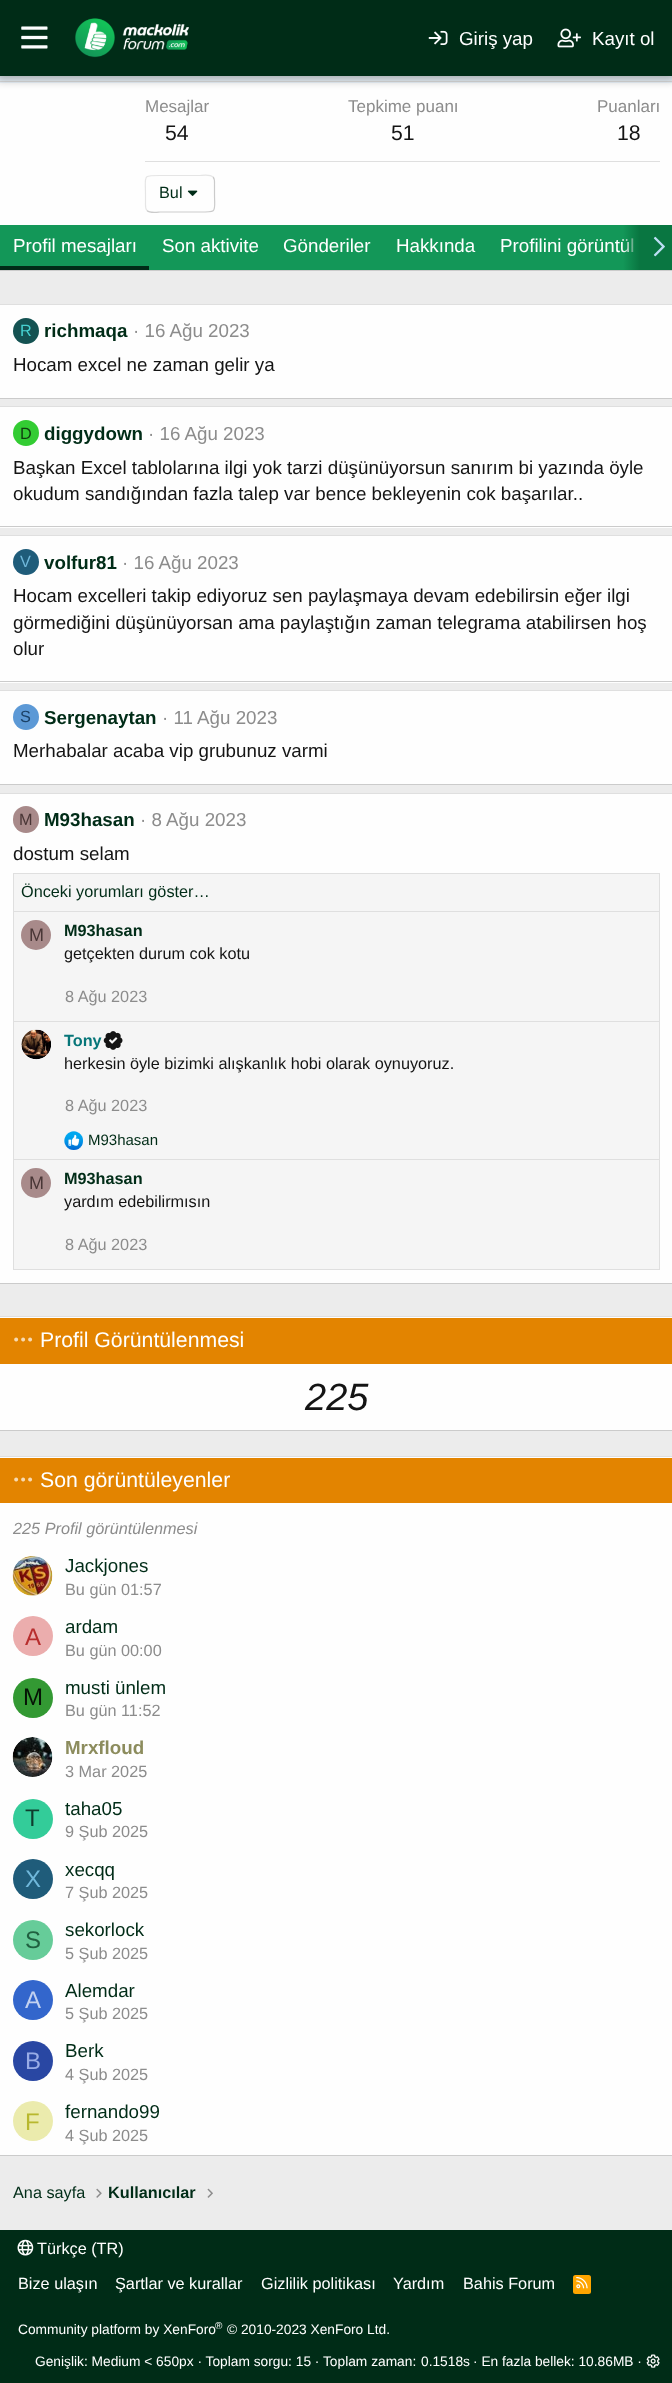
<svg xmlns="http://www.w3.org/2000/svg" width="672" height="2383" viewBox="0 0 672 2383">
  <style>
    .t1 { font: 18.75px Liberation Sans; fill: #fff; }
    .t2 { font: 17px Liberation Sans; fill: #8c8c8c; }
    .t3 { font: 21.25px Liberation Sans; fill: #141414; }
    .t4 { font: 16.25px Liberation Sans; fill: #002c17; }
    .t5 { font: 16.25px Liberation Sans; fill: #47d1d1; }
    .t6 { font: bold 18.75px Liberation Sans; fill: #002c17; }
    .t7 { font: 18.75px Liberation Sans; fill: #8c8c8c; }
    .t8 { font: 18.75px Liberation Sans; fill: #141414; }
    .t9 { font: 16.25px Liberation Sans; fill: #0f3d0f; }
    .t10 { font: 16.25px Liberation Sans; fill: #70b8db; }
    .t11 { font: 16.25px Liberation Sans; fill: #1a4066; }
    .t12 { font: 16.25px Liberation Sans; fill: #493636; }
    .t13 { font: 18px Liberation Sans; fill: #493636; }
    .t14 { font: bold 16.25px Liberation Sans; fill: #002c17; }
    .t15 { font: 16.25px Liberation Sans; fill: #141414; }
    .t16 { font: 16.25px Liberation Sans; fill: #8c8c8c; }
    .t17 { font: bold 16.25px Liberation Sans; fill: #077679; }
    .t18 { font: 15px Liberation Sans; fill: #002c17; }
    .t19 { font: 21.25px Liberation Sans; fill: #fff; }
    .t20 { font: italic 38px Liberation Sans; fill: #141414; }
    .t21 { font: italic 16.25px Liberation Sans; fill: #8c8c8c; }
    .t22 { font: 18.75px Liberation Sans; fill: #002c17; }
    .t23 { font: 24px Liberation Sans; fill: #b82e2e; }
    .t24 { font: 24px Liberation Sans; fill: #061306; }
    .t25 { font: bold 18.75px Liberation Sans; fill: #8c8c5d; }
    .t26 { font: 24px Liberation Sans; fill: #0f3d2e; }
    .t27 { font: 24px Liberation Sans; fill: #70b8db; }
    .t28 { font: 24px Liberation Sans; fill: #206040; }
    .t29 { font: 24px Liberation Sans; fill: #c2d1f0; }
    .t30 { font: 24px Liberation Sans; fill: #99ace6; }
    .t31 { font: 24px Liberation Sans; fill: #b8b82e; }
    .t32 { font: 16.25px Liberation Sans; fill: #fff; }
    .t33 { font: 13.75px Liberation Sans; fill: #fff; }
    .t34 { font: 10px Liberation Sans; fill: #fff; }
  </style>
  <defs>
    <linearGradient id="g1" gradientUnits="userSpaceOnUse" x1="623" y1="248" x2="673" y2="248"><stop offset="0" stop-color="#097641" stop-opacity="0"/><stop offset="0.33" stop-color="#097641"/></linearGradient>
  </defs>
  <rect width="100%" height="100%" fill="#ececec"/>
  <rect x="0" y="83" width="672" height="142" fill="#fefefe"/>
  <rect x="0" y="76" width="672" height="7" fill="#edf6fd"/>
  <rect x="0" y="81" width="672" height="1" fill="#dfdfdf"/>
  <rect x="-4" y="-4" width="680" height="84" fill="#0000004d" filter="blur(5px)"/>
  <rect x="0" y="0" width="672" height="76" fill="#002c17"/>
  <image x="21" y="26" width="27" height="23" href="images/1.png"/>
  <image x="75" y="18" width="114" height="40" href="images/2.png"/>
  <image x="428" y="30" width="20" height="15" href="images/3.png"/>
  <text x="459" y="45" class="t1">Giriş yap</text>
  <image x="557" y="28" width="24" height="20" href="images/4.png"/>
  <text x="592" y="45" class="t1">Kayıt ol</text>
  <rect x="0" y="270" width="672" height="1" fill="#cbcbcb"/>
  <text x="145" y="112" class="t2">Mesajlar</text>
  <text x="165" y="140" class="t3">54</text>
  <text x="348" y="112" class="t2">Tepkime puanı</text>
  <text x="391" y="140" class="t3">51</text>
  <text x="597" y="112" class="t2">Puanları</text>
  <text x="617" y="140" class="t3">18</text>
  <rect x="145" y="161" width="515" height="1" fill="#dfdfdf"/>
  <path d="M213 177C215 179 214.5 182 214.5 184.5V194C214.5 212 218 212 200 212H160C158.5 212 150 213.5 147 210.5" fill="none" stroke="#cbcbcb" stroke-width="1.2"/>
  <path d="M147 210.5C145 208.5 145.5 205.5 145.5 203V194C145.5 175.5 142 175.5 160 175.5H200C201.5 175.5 210 174 213 177" fill="none" stroke="#e5e5e5" stroke-width="1.2"/>
  <text x="159" y="198" class="t4">Bul</text>
  <image x="187" y="190" width="11" height="6" href="images/5.png"/>
  <rect x="0" y="225" width="639" height="45" fill="#139758"/>
  <rect x="0" y="266" width="149" height="4" fill="#002c17"/>
  <text x="13" y="252" class="t1">Profil mesajları</text>
  <text x="162" y="252" class="t1">Son aktivite</text>
  <text x="283" y="252" class="t1">Gönderiler</text>
  <text x="396" y="252" class="t1">Hakkında</text>
  <text x="500" y="252" class="t1">Profilini görüntül</text>
  <rect x="623" y="225" width="49" height="45" fill="url(#g1)"/>
  <image x="653" y="236" width="12" height="21" href="images/6.png"/>
  <rect x="0" y="305" width="672" height="93" fill="#fefefe"/>
  <rect x="0" y="304" width="672" height="1" fill="#dfdfdf"/>
  <rect x="0" y="398" width="672" height="1" fill="#cbcbcb"/>
  <circle cx="26" cy="331" r="13" fill="#145252"/>
  <text x="20" y="336" class="t5">R</text>
  <text x="44" y="337" class="t6">richmaqa</text>
  <text x="133" y="337" class="t7">· 16 Ağu 2023</text>
  <text x="13" y="371" class="t8">Hocam excel ne zaman gelir ya</text>
  <rect x="0" y="407" width="672" height="121" fill="#fefefe"/>
  <rect x="0" y="406" width="672" height="1" fill="#dfdfdf"/>
  <rect x="0" y="526" width="672" height="1" fill="#cbcbcb"/>
  <circle cx="26" cy="433" r="13" fill="#3c3"/>
  <text x="20" y="439" class="t9">D</text>
  <text x="44" y="440" class="t6">diggydown</text>
  <text x="148" y="440" class="t7">· 16 Ağu 2023</text>
  <text x="13" y="474" class="t8">Başkan Excel tablolarına ilgi yok tarzi düşünüyorsun sanırım bi yazında öyle</text>
  <text x="13" y="500" class="t8">okudum sandığından fazla talep var bence bekleyenin cok başarılar..</text>
  <rect x="0" y="536" width="672" height="147" fill="#fefefe"/>
  <rect x="0" y="535" width="672" height="1" fill="#dfdfdf"/>
  <rect x="0" y="681" width="672" height="1" fill="#cbcbcb"/>
  <circle cx="26" cy="562" r="13" fill="#1f5c7a"/>
  <text x="20" y="567" class="t10">V</text>
  <text x="44" y="569" class="t6">volfur81</text>
  <text x="122" y="569" class="t7">· 16 Ağu 2023</text>
  <text x="13" y="602" class="t8">Hocam excelleri takip ediyoruz sen paylaşmaya devam edebilirsin eğer ilgi</text>
  <text x="13" y="629" class="t8">görmediğini düşünüyorsan ama paylaştığın zaman telegrama atabilirsen hoş</text>
  <text x="13" y="655" class="t8">olur</text>
  <rect x="0" y="691" width="672" height="93" fill="#fefefe"/>
  <rect x="0" y="690" width="672" height="1" fill="#dfdfdf"/>
  <rect x="0" y="784" width="672" height="1" fill="#cbcbcb"/>
  <circle cx="26" cy="717" r="13" fill="#5c99d6"/>
  <text x="20" y="722" class="t11">S</text>
  <text x="44" y="724" class="t6">Sergenaytan</text>
  <text x="162" y="724" class="t7">· 11 Ağu 2023</text>
  <text x="13" y="757" class="t8">Merhabalar acaba vip grubunuz varmi</text>
  <rect x="0" y="794" width="672" height="489" fill="#fefefe"/>
  <rect x="0" y="793" width="672" height="1" fill="#dfdfdf"/>
  <rect x="0" y="1283" width="672" height="1" fill="#cbcbcb"/>
  <rect x="13" y="806" width="26" height="27" rx="13" fill="#a88a8a"/>
  <text x="19" y="825" class="t12">M</text>
  <text x="44" y="826" class="t6">M93hasan</text>
  <text x="140" y="826" class="t7">· 8 Ağu 2023</text>
  <text x="13" y="860" class="t8">dostum selam</text>
  <rect x="14" y="874" width="645" height="37" fill="#f5f5f5"/>
  <rect x="13.5" y="873.5" width="646" height="39" fill="none" stroke="#dfdfdf"/>
  <text x="21" y="897" class="t4">Önceki yorumları göster…</text>
  <rect x="14" y="912" width="645" height="109" fill="#f5f5f5"/>
  <rect x="13.5" y="911.5" width="646" height="111" fill="none" stroke="#dfdfdf"/>
  <circle cx="36" cy="935" r="15" fill="#a88a8a"/>
  <text x="29" y="941" class="t13">M</text>
  <text x="64" y="936" class="t14">M93hasan</text>
  <text x="64" y="959" class="t15">getçekten durum cok kotu</text>
  <text x="65" y="1002" class="t16">8 Ağu 2023</text>
  <rect x="13.5" y="1021.5" width="646" height="138" fill="#f5f5f5" stroke="#dfdfdf"/>
  <circle cx="36" cy="1045" r="15" fill="#fefefe"/>
  <image x="21" y="1029" width="30" height="31" href="images/7.png"/>
  <text x="64" y="1046" class="t17">Tony</text>
  <image x="103" y="1031" width="20" height="19" href="images/8.png"/>
  <text x="64" y="1069" class="t15">herkesin öyle bizimki alışkanlık hobi olarak oynuyoruz.</text>
  <text x="65" y="1111" class="t16">8 Ağu 2023</text>
  <image x="64" y="1131" width="19" height="19" href="images/9.png"/>
  <text x="88" y="1145" class="t18">M93hasan</text>
  <rect x="13.5" y="1159.5" width="646" height="110" fill="#f5f5f5" stroke="#dfdfdf"/>
  <circle cx="36" cy="1183" r="15" fill="#a88a8a"/>
  <text x="29" y="1189" class="t13">M</text>
  <text x="64" y="1184" class="t14">M93hasan</text>
  <text x="64" y="1207" class="t15">yardım edebilirmısın</text>
  <text x="65" y="1250" class="t16">8 Ağu 2023</text>
  <rect x="0" y="1317" width="672" height="113" fill="#fefefe"/>
  <rect x="0" y="1316" width="672" height="1" fill="#dfdfdf"/>
  <rect x="0" y="1430" width="672" height="1" fill="#cbcbcb"/>
  <rect x="0" y="1318" width="672" height="46" fill="#e38400"/>
  <image x="14" y="1337" width="19" height="5" href="images/10.png"/>
  <text x="40" y="1347" class="t19">Profil Görüntülenmesi</text>
  <text x="305" y="1410" class="t20">225</text>
  <rect x="0" y="1457" width="672" height="698" fill="#fefefe"/>
  <rect x="0" y="1456" width="672" height="1" fill="#dfdfdf"/>
  <rect x="0" y="2155" width="672" height="1" fill="#cbcbcb"/>
  <rect x="0" y="1458" width="672" height="45" fill="#e38400"/>
  <image x="14" y="1477" width="19" height="5" href="images/10.png"/>
  <text x="40" y="1487" class="t19">Son görüntüleyenler</text>
  <text x="13" y="1534" class="t21">225 Profil görüntülenmesi</text>
  <image x="12" y="1556" width="41" height="40" href="images/11.png"/>
  <text x="65" y="1572" class="t22">Jackjones</text>
  <text x="65" y="1595" class="t16">Bu gün 01:57</text>
  <circle cx="33" cy="1636" r="20" fill="#ebadad"/>
  <text x="25" y="1645" class="t23">A</text>
  <text x="65" y="1633" class="t22">ardam</text>
  <text x="65" y="1656" class="t16">Bu gün 00:00</text>
  <circle cx="33" cy="1698" r="20" fill="#393"/>
  <text x="23" y="1705" class="t24">M</text>
  <text x="65" y="1694" class="t22">musti ünlem</text>
  <text x="65" y="1716" class="t16">Bu gün 11:52</text>
  <image x="12" y="1737" width="41" height="40" href="images/12.png"/>
  <text x="65" y="1754" class="t25">Mrxfloud</text>
  <text x="65" y="1777" class="t16">3 Mar 2025</text>
  <circle cx="33" cy="1819" r="20" fill="#3c9"/>
  <text x="25" y="1826" class="t26">T</text>
  <text x="65" y="1815" class="t22">taha05</text>
  <text x="65" y="1837" class="t16">9 Şub 2025</text>
  <circle cx="33" cy="1879" r="20" fill="#1f5c7a"/>
  <text x="25" y="1887" class="t27">X</text>
  <text x="65" y="1876" class="t22">xecqq</text>
  <text x="65" y="1898" class="t16">7 Şub 2025</text>
  <circle cx="33" cy="1940" r="20" fill="#6c9"/>
  <text x="25" y="1948" class="t28">S</text>
  <text x="65" y="1936" class="t22">sekorlock</text>
  <text x="65" y="1959" class="t16">5 Şub 2025</text>
  <circle cx="33" cy="2000" r="20" fill="#36c"/>
  <text x="25" y="2008" class="t29">A</text>
  <text x="65" y="1997" class="t22">Alemdar</text>
  <text x="65" y="2019" class="t16">5 Şub 2025</text>
  <circle cx="33" cy="2061" r="20" fill="#2947a3"/>
  <text x="25" y="2069" class="t30">B</text>
  <text x="65" y="2057" class="t22">Berk</text>
  <text x="65" y="2080" class="t16">4 Şub 2025</text>
  <circle cx="33" cy="2121" r="20" fill="#ebebad"/>
  <text x="25" y="2130" class="t31">F</text>
  <text x="65" y="2118" class="t22">fernando99</text>
  <text x="65" y="2141" class="t16">4 Şub 2025</text>
  <text x="13" y="2198" class="t4">Ana sayfa</text>
  <image x="96" y="2188" width="6" height="10" href="images/13.png"/>
  <text x="108" y="2198" class="t14">Kullanıcılar</text>
  <image x="207" y="2188" width="6" height="10" href="images/14.png"/>
  <rect x="0" y="2230" width="672" height="153" fill="#002c17"/>
  <image x="17" y="2239" width="17" height="17" href="images/15.png"/>
  <text x="37" y="2254" class="t32">Türkçe (TR)</text>
  <text x="18" y="2289" class="t32">Bize ulaşın</text>
  <text x="115" y="2289" class="t32">Şartlar ve kurallar</text>
  <text x="261" y="2289" class="t32">Gizlilik politikası</text>
  <text x="393" y="2289" class="t32">Yardım</text>
  <text x="463" y="2289" class="t32">Bahis Forum</text>
  <rect x="573" y="2275" width="18" height="19" rx="2.5" fill="#ffa500"/>
  <image x="576" y="2276" width="12" height="13" href="images/16.png"/>
  <text x="18" y="2334" class="t33">Community platform by XenForo</text>
  <text x="215" y="2329" class="t34">®</text>
  <text x="227" y="2334" class="t33">© 2010-2023 XenForo Ltd.</text>
  <text x="35" y="2366" class="t33">Genişlik: Medium &lt; 650px · Toplam sorgu: 15 · Toplam zaman:</text>
  <text x="421" y="2366" class="t33">0.1518s</text>
  <text x="473" y="2366" class="t33">· En fazla bellek: 10.86MB ·</text>
  <image x="646" y="2354" width="14" height="14" href="images/17.png"/>
</svg>
